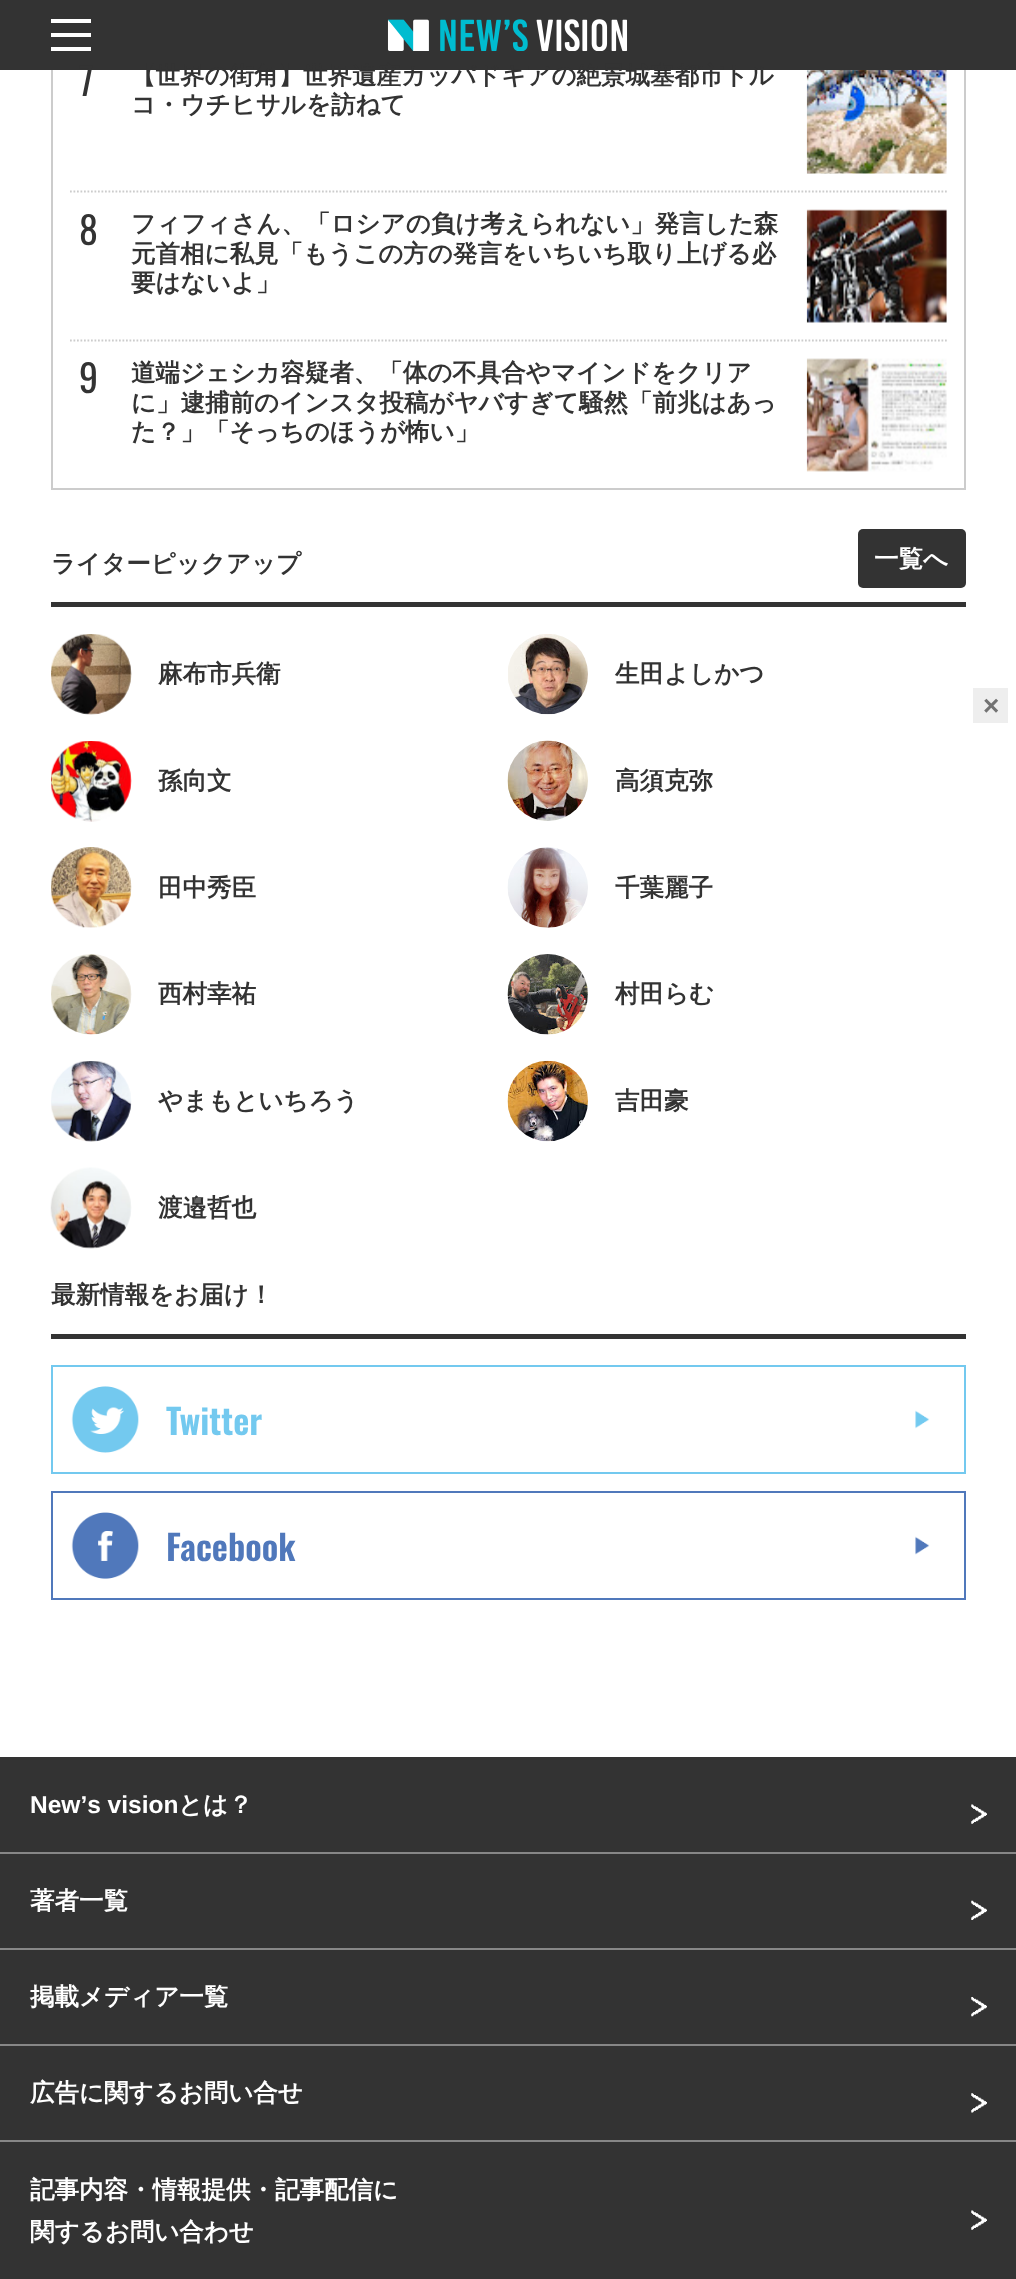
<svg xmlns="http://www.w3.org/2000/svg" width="1016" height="2279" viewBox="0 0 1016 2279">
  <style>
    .t1 { font: 38px Oswald; fill: #333; }
    .t2 { font: bold 24.5px WenQuanYi Zen Hei; fill: #333; }
    .t3 { font: bold 24.5px WenQuanYi Zen Hei; fill: #fff; }
    .t4 { font: 600 35px Oswald; fill: #73c9ef; }
    .t5 { font: 600 35px Oswald; fill: #5078bb; }
    .t6 { font: bold 28px Liberation Sans; fill: #737373; }
    .t7 { font: bold 24.5px Liberation Sans; fill: #fff; }
  </style>
  <rect width="100%" height="100%" fill="#fff"/>
  <rect x="0" y="0" width="1016" height="70" fill="#333"/>
  <rect x="51" y="19" width="40" height="4" fill="#fff"/>
  <rect x="51" y="33" width="40" height="4" fill="#fff"/>
  <rect x="51" y="47" width="40" height="4" fill="#fff"/>
  <image x="387" y="19" width="241" height="32" href="images/1.png"/>
  <rect x="964" y="70" width="2" height="420" fill="#ccc"/>
  <rect x="51" y="488" width="915" height="2" fill="#ccc"/>
  <rect x="51" y="70" width="2" height="420" fill="#ccc"/>
  <text x="79" y="96" class="t1">7</text>
  <text x="131" y="84" class="t2">【世界の街角】世界遺産カッパドキアの絶景城塞都市トル</text>
  <image x="806" y="70" width="141" height="104" href="images/2.png"/>
  <text x="131" y="113" class="t2">コ・ウチヒサルを訪ねて</text>
  <path d="M70 191.5H947" fill="none" stroke="#ccc" stroke-width="1.8" stroke-dasharray="1.75 1.75"/>
  <text x="79" y="245" class="t1">8</text>
  <text x="131" y="232" class="t2">フィフィさん、「ロシアの負け考えられない」発言した森</text>
  <image x="806" y="209" width="141" height="114" href="images/3.png"/>
  <text x="131" y="262" class="t2">元首相に私見「もうこの方の発言をいちいち取り上げる必</text>
  <text x="131" y="291" class="t2">要はないよ」</text>
  <path d="M70 340.5H947" fill="none" stroke="#ccc" stroke-width="1.8" stroke-dasharray="1.75 1.75"/>
  <text x="79" y="393" class="t1">9</text>
  <text x="131" y="381" class="t2">道端ジェシカ容疑者、「体の不具合やマインドをクリア</text>
  <image x="806" y="358" width="141" height="114" href="images/4.png"/>
  <text x="131" y="411" class="t2">に」逮捕前のインスタ投稿がヤバすぎて騒然「前兆はあっ</text>
  <text x="131" y="440" class="t2">た？」「そっちのほうが怖い」</text>
  <rect x="51" y="602" width="915" height="5" fill="#333"/>
  <text x="51" y="572" class="t2">ライターピックアップ</text>
  <rect x="858" y="529" width="108" height="59" rx="5" fill="#333"/>
  <text x="874" y="567" class="t3">一覧へ</text>
  <image x="51" y="634" width="81" height="81" href="images/5.png"/>
  <text x="158" y="682" class="t2">麻布市兵衛</text>
  <image x="508" y="634" width="80" height="81" href="images/6.png"/>
  <text x="615" y="682" class="t2">生田よしかつ</text>
  <image x="51" y="741" width="81" height="81" href="images/7.png"/>
  <text x="158" y="789" class="t2">孫向文</text>
  <image x="507" y="740" width="81" height="81" href="images/8.png"/>
  <text x="615" y="789" class="t2">高須克弥</text>
  <image x="51" y="847" width="81" height="81" href="images/9.png"/>
  <text x="158" y="896" class="t2">田中秀臣</text>
  <image x="507" y="847" width="81" height="81" href="images/10.png"/>
  <text x="615" y="896" class="t2">千葉麗子</text>
  <image x="51" y="954" width="81" height="81" href="images/11.png"/>
  <text x="158" y="1002" class="t2">西村幸祐</text>
  <image x="507" y="954" width="81" height="81" href="images/12.png"/>
  <text x="615" y="1002" class="t2">村田らむ</text>
  <image x="51" y="1061" width="81" height="81" href="images/13.png"/>
  <text x="158" y="1109" class="t2">やまもといちろう</text>
  <image x="507" y="1060" width="81" height="82" href="images/14.png"/>
  <text x="615" y="1109" class="t2">吉田豪</text>
  <image x="50" y="1167" width="82" height="82" href="images/15.png"/>
  <text x="158" y="1216" class="t2">渡邉哲也</text>
  <rect x="51" y="1334" width="915" height="5" fill="#333"/>
  <text x="51" y="1303" class="t2">最新情報をお届け！</text>
  <rect x="52" y="1366" width="913" height="107" fill="none" stroke="#73c9ef" stroke-width="2"/>
  <image x="71" y="1386" width="68" height="67" href="images/16.png"/>
  <text x="166" y="1435" class="t4">Twitter</text>
  <image x="915" y="1410" width="15" height="19" href="images/17.png"/>
  <rect x="52" y="1492" width="913" height="107" fill="none" stroke="#5078bb" stroke-width="2"/>
  <image x="71" y="1512" width="68" height="67" href="images/18.png"/>
  <text x="166" y="1561" class="t5">Facebook</text>
  <image x="915" y="1536" width="15" height="19" href="images/19.png"/>
  <rect x="973" y="688" width="35" height="35" fill="#eee"/>
  <text x="983" y="715" class="t6">×</text>
  <rect x="0" y="1757" width="1016" height="522" fill="#333"/>
  <rect x="0" y="1852" width="1016" height="2" fill="#878787"/>
  <text x="30" y="1813" class="t7">Newʼs vision</text>
  <text x="178" y="1813" class="t3">とは？</text>
  <image x="971" y="1804" width="16" height="20" href="images/20.png"/>
  <rect x="0" y="1948" width="1016" height="2" fill="#878787"/>
  <text x="30" y="1909" class="t3">著者一覧</text>
  <image x="971" y="1900" width="16" height="20" href="images/21.png"/>
  <rect x="0" y="2044" width="1016" height="2" fill="#878787"/>
  <text x="30" y="2005" class="t3">掲載メディア一覧</text>
  <image x="971" y="1997" width="16" height="20" href="images/22.png"/>
  <rect x="0" y="2140" width="1016" height="2" fill="#878787"/>
  <text x="30" y="2101" class="t3">広告に関するお問い合せ</text>
  <image x="971" y="2093" width="16" height="20" href="images/23.png"/>
  <text x="30" y="2198" class="t3">記事内容・情報提供・記事配信に</text>
  <text x="30" y="2240" class="t3">関するお問い合わせ</text>
  <image x="971" y="2210" width="16" height="20" href="images/20.png"/>
</svg>
